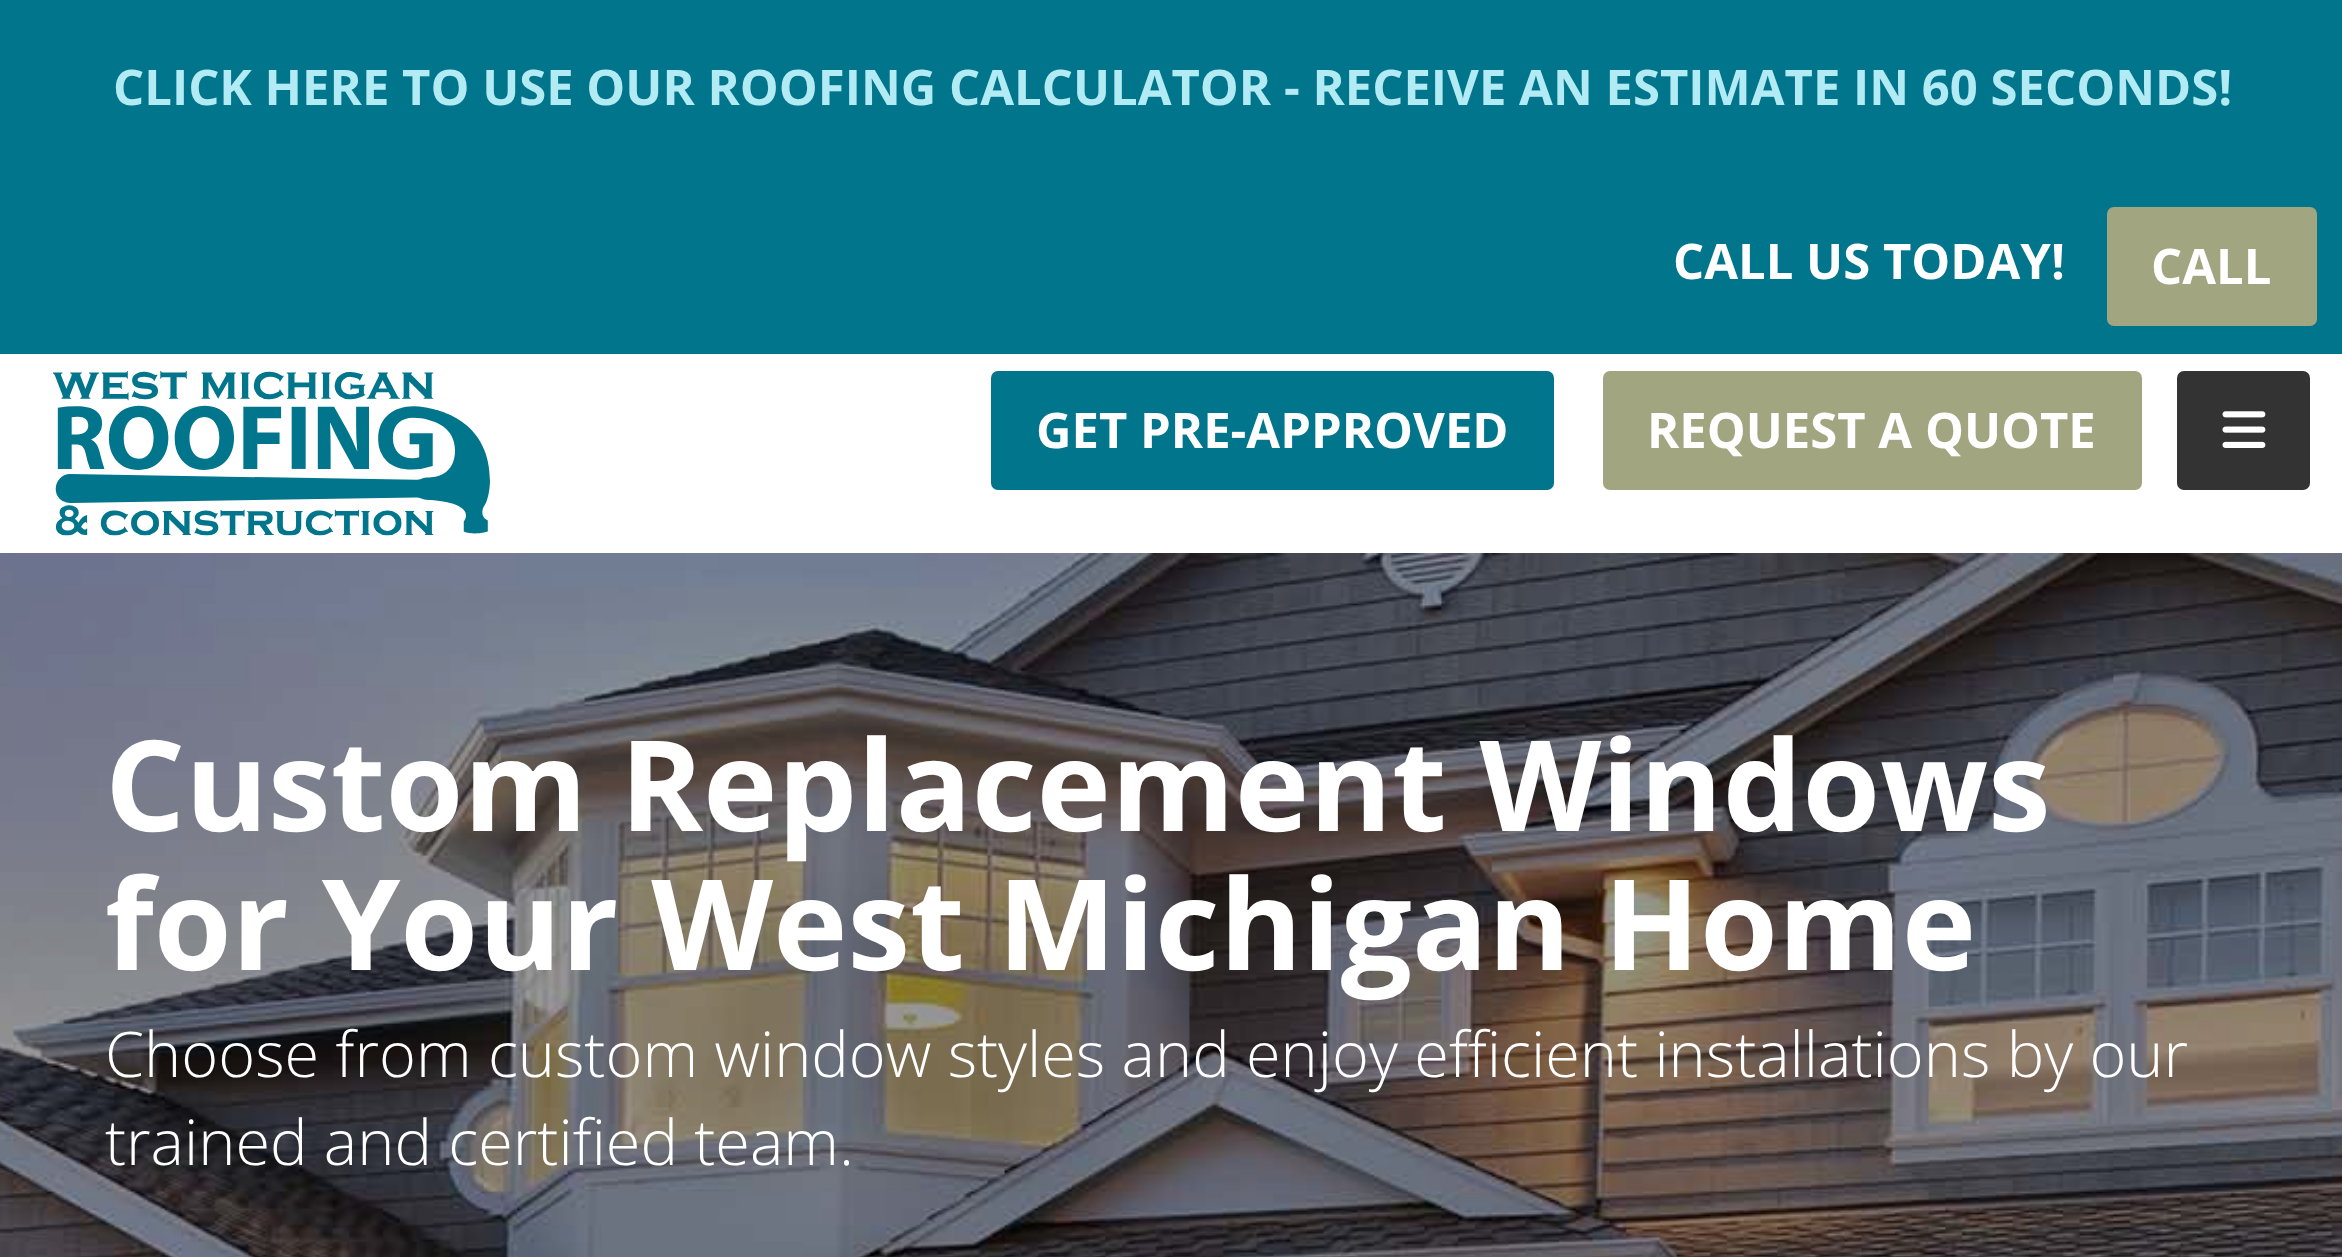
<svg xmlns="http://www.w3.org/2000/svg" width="2342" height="1257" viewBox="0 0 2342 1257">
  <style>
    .t1 { font: bold 49px Open Sans; fill: #b2ebf4; }
    .t2 { font: bold 49px Open Sans; fill: #fff; }
    .t3 { font: bold 126px Open Sans; fill: #fff; }
    .t4 { font: 300 63px Open Sans; fill: #fff; }
  </style>
  <rect width="100%" height="100%" fill="#fff"/>
  <rect x="0" y="0" width="2342" height="354" fill="#00758b"/>
  <text x="113" y="105" class="t1">CLICK HERE TO USE OUR ROOFING CALCULATOR - RECEIVE AN ESTIMATE IN 60 SECONDS!</text>
  <text x="1673" y="279" class="t2">CALL US TODAY!</text>
  <rect x="2109" y="209" width="206" height="115" rx="5" fill="#a2a680" stroke="#a2a680" stroke-width="4"/>
  <text x="2151" y="284" class="t2">CALL</text>
  <image x="53" y="371" width="437" height="165" href="images/1.png"/>
  <rect x="993" y="373" width="559" height="115" rx="5" fill="#00758b" stroke="#00758b" stroke-width="4"/>
  <text x="1036" y="448" class="t2">GET PRE-APPROVED</text>
  <rect x="1605" y="373" width="535" height="115" rx="5" fill="#a2a680" stroke="#a2a680" stroke-width="4"/>
  <text x="1647" y="448" class="t2">REQUEST A QUOTE</text>
  <rect x="2177" y="371" width="133" height="119" rx="7" fill="#333"/>
  <image x="2222" y="411" width="44" height="37" href="images/2.png"/>
  <image x="0" y="553" width="2342" height="704" href="images/3.png"/>
  <text x="105" y="831" class="t3">Custom Replacement Windows</text>
  <text x="105" y="970" class="t3">for Your West Michigan Home</text>
  <text x="105" y="1077" class="t4">Choose from custom window styles and enjoy efficient installations by our</text>
  <text x="105" y="1165" class="t4">trained and certified team.</text>
</svg>
